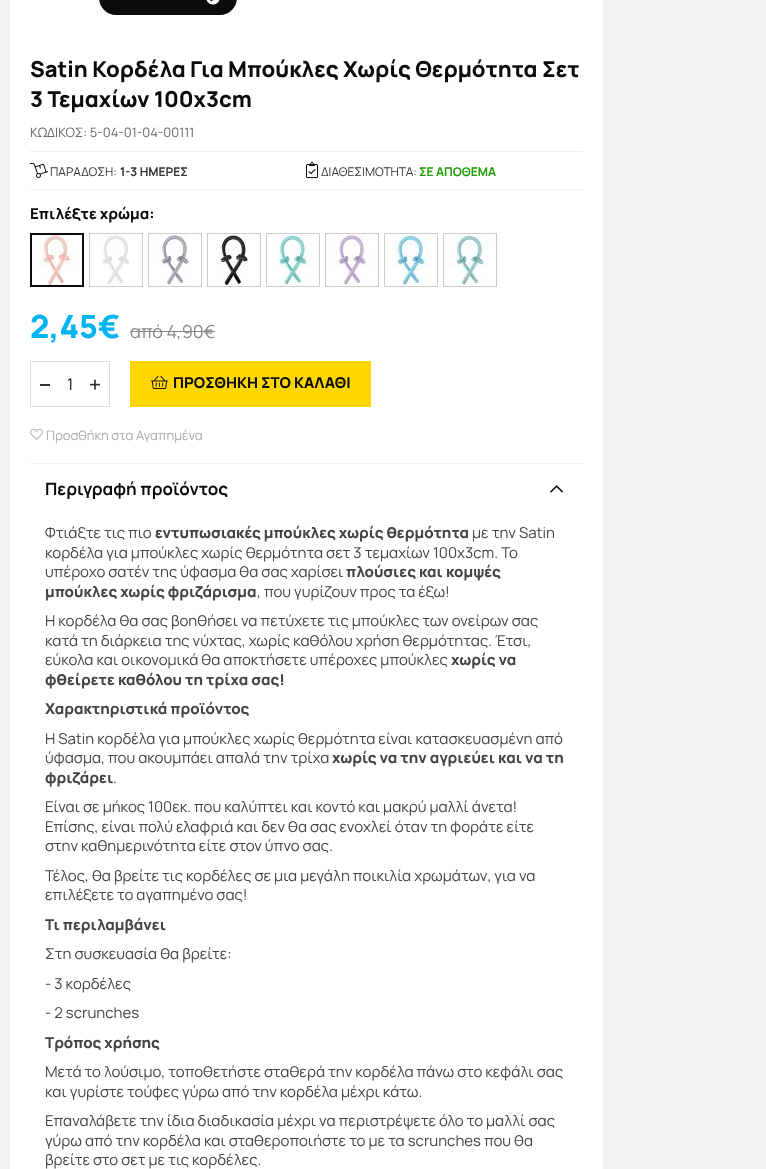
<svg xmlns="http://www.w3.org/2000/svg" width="766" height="1169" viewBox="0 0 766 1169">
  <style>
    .t1 { font: 800 22px Manrope; fill: #0b0b0b; }
    .t2 { font: 13px Manrope; fill: #666; }
    .t3 { font: 12px Manrope; fill: #333; }
    .t4 { font: bold 12px Manrope; fill: #333; }
    .t5 { font: bold 12px Manrope; fill: #1f9b02; }
    .t6 { font: 800 15px Manrope; fill: #0b0b0b; }
    .t7 { font: 800 32px Manrope; fill: #00b4f1; }
    .t8 { font: 18px Manrope; fill: #888; }
    .t9 { font: 16px Manrope; fill: #0b0b0b; }
    .t10 { font: 13px Manrope; fill: #aaa; }
    .t11 { font: bold 17px Manrope; fill: #0b0b0b; }
    .t12 { font: 15px Manrope; fill: #444; }
    .t13 { font: 800 15px Manrope; fill: #444; }
  </style>
  <rect width="100%" height="100%" fill="#f1f1f1"/>
  <rect x="10" y="0" width="593" height="1169" fill="#fff"/>
  <rect x="99.5" y="-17.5" width="137" height="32" rx="16.5" fill="#0b0b0b" stroke="#0b0b0b"/>
  <image x="206" y="0" width="14" height="5" href="images/1.png"/>
  <text x="30" y="77" class="t1">Satin Κορδέλα Για Μπούκλες Χωρίς Θερμότητα Σετ</text>
  <text x="30" y="107" class="t1">3 Τεμαχίων 100x3cm</text>
  <text x="30" y="137" class="t2">KΩΔΙΚΟΣ: 5-04-01-04-00111</text>
  <rect x="30" y="151" width="553" height="1" fill="#eee"/>
  <rect x="30" y="189" width="553" height="1" fill="#eee"/>
  <image x="30" y="163" width="18" height="15" href="images/2.png"/>
  <text x="50" y="176" class="t3">ΠΑΡΑΔΟΣΗ:</text>
  <text x="120" y="176" class="t4">1-3 ΗΜΕΡΕΣ</text>
  <image x="306" y="162" width="12" height="16" href="images/3.png"/>
  <text x="321" y="176" class="t3">ΔΙΑΘΕΣΙΜΟΤΗΤΑ:</text>
  <text x="419" y="176" class="t5">ΣΕ ΑΠΟΘΕΜΑ</text>
  <text x="30" y="219" class="t6">Επιλέξτε χρώμα:</text>
  <rect x="30" y="233" width="54" height="54" fill="#0b0b0b"/>
  <image x="32" y="235" width="50" height="50" href="images/4.png"/>
  <rect x="89.5" y="233.5" width="53" height="53" fill="none" stroke="#ccc"/>
  <image x="102" y="235" width="28" height="50" href="images/5.png"/>
  <rect x="148.5" y="233.5" width="53" height="53" fill="none" stroke="#ccc"/>
  <image x="158" y="235" width="32" height="50" href="images/6.png"/>
  <rect x="207.5" y="233.5" width="53" height="53" fill="none" stroke="#ccc"/>
  <image x="217" y="235" width="32" height="50" href="images/7.png"/>
  <rect x="266.5" y="233.5" width="53" height="53" fill="none" stroke="#ccc"/>
  <image x="268" y="235" width="46" height="50" href="images/8.png"/>
  <rect x="325.5" y="233.5" width="53" height="53" fill="none" stroke="#ccc"/>
  <image x="327" y="235" width="48" height="50" href="images/9.png"/>
  <rect x="384.5" y="233.5" width="53" height="53" fill="none" stroke="#ccc"/>
  <image x="386" y="235" width="48" height="50" href="images/10.png"/>
  <rect x="443.5" y="233.5" width="53" height="53" fill="none" stroke="#ccc"/>
  <image x="445" y="235" width="44" height="50" href="images/11.png"/>
  <text x="30" y="338" class="t7">2,45€</text>
  <text x="130" y="338" class="t8">από 4,90€</text>
  <rect x="130" y="331" width="85" height="1" fill="#888"/>
  <rect x="30.5" y="361.5" width="79" height="45" fill="none" stroke="#dadada"/>
  <rect x="40" y="384" width="10" height="2" fill="#333"/>
  <text x="67" y="390" class="t9">1</text>
  <image x="90" y="379" width="10" height="11" href="images/12.png"/>
  <rect x="130" y="361" width="241" height="46" fill="#fed700"/>
  <image x="151" y="375" width="17" height="14" href="images/13.png"/>
  <text x="173" y="388" class="t6">ΠΡΟΣΘΗΚΗ ΣΤΟ ΚΑΛΑΘΙ</text>
  <image x="30" y="428" width="13" height="12" href="images/14.png"/>
  <text x="46" y="440" class="t10">Προσθήκη στα Αγαπημένα</text>
  <rect x="30" y="463" width="553" height="1" fill="#f1f1f1"/>
  <text x="45" y="495" class="t11">Περιγραφή προϊόντος</text>
  <image x="550" y="485" width="13" height="8" href="images/15.png"/>
  <text x="45" y="538" class="t12">Φτιάξτε τις πιο</text>
  <text x="155" y="538" class="t13">εντυπωσιακές μπούκλες χωρίς θερμότητα</text>
  <text x="472" y="538" class="t12">με την Satin</text>
  <text x="45" y="558" class="t12">κορδέλα για μπούκλες χωρίς θερμότητα σετ 3 τεμαχίων 100x3cm. Το</text>
  <text x="45" y="577" class="t12">υπέροχο σατέν της ύφασμα θα σας χαρίσει</text>
  <text x="346" y="577" class="t13">πλούσιες και κομψές</text>
  <text x="45" y="597" class="t13">μπούκλες χωρίς φριζάρισμα</text>
  <text x="257" y="597" class="t12">, που γυρίζουν προς τα έξω!</text>
  <text x="45" y="626" class="t12">Η κορδέλα θα σας βοηθήσει να πετύχετε τις μπούκλες των ονείρων σας</text>
  <text x="45" y="646" class="t12">κατά τη διάρκεια της νύχτας, χωρίς καθόλου χρήση θερμότητας. Έτσι,</text>
  <text x="45" y="665" class="t12">εύκολα και οικονομικά θα αποκτήσετε υπέροχες μπούκλες</text>
  <text x="451" y="665" class="t13">χωρίς να</text>
  <text x="45" y="685" class="t13">φθείρετε καθόλου τη τρίχα σας!</text>
  <text x="45" y="714" class="t13">Χαρακτηριστικά προϊόντος</text>
  <text x="45" y="744" class="t12">Η Satin κορδέλα για μπούκλες χωρίς θερμότητα είναι κατασκευασμένη από</text>
  <text x="45" y="763" class="t12">ύφασμα, που ακουμπάει απαλά την τρίχα</text>
  <text x="332" y="763" class="t13">χωρίς να την αγριεύει και να τη</text>
  <text x="45" y="783" class="t13">φριζάρει</text>
  <text x="113" y="783" class="t12">.</text>
  <text x="45" y="812" class="t12">Είναι σε μήκος 100εκ. που καλύπτει και κοντό και μακρύ μαλλί άνετα!</text>
  <text x="45" y="832" class="t12">Επίσης, είναι πολύ ελαφριά και δεν θα σας ενοχλεί όταν τη φοράτε είτε</text>
  <text x="45" y="851" class="t12">στην καθημερινότητα είτε στον ύπνο σας.</text>
  <text x="45" y="881" class="t12">Τέλος, θα βρείτε τις κορδέλες σε μια μεγάλη ποικιλία χρωμάτων, για να</text>
  <text x="45" y="900" class="t12">επιλέξετε το αγαπημένο σας!</text>
  <text x="45" y="930" class="t13">Τι περιλαμβάνει</text>
  <text x="45" y="959" class="t12">Στη συσκευασία θα βρείτε:</text>
  <text x="45" y="989" class="t12">- 3 κορδέλες</text>
  <text x="45" y="1018" class="t12">- 2 scrunches</text>
  <text x="45" y="1048" class="t13">Τρόπος χρήσης</text>
  <text x="45" y="1077" class="t12">Μετά το λούσιμο, τοποθετήστε σταθερά την κορδέλα πάνω στο κεφάλι σας</text>
  <text x="45" y="1097" class="t12">και γυρίστε τούφες γύρω από την κορδέλα μέχρι κάτω.</text>
  <text x="45" y="1126" class="t12">Επαναλάβετε την ίδια διαδικασία μέχρι να περιστρέψετε όλο το μαλλί σας</text>
  <text x="45" y="1146" class="t12">γύρω από την κορδέλα και σταθεροποιήστε το με τα scrunches που θα</text>
  <text x="45" y="1165" class="t12">βρείτε στο σετ με τις κορδέλες.</text>
</svg>
